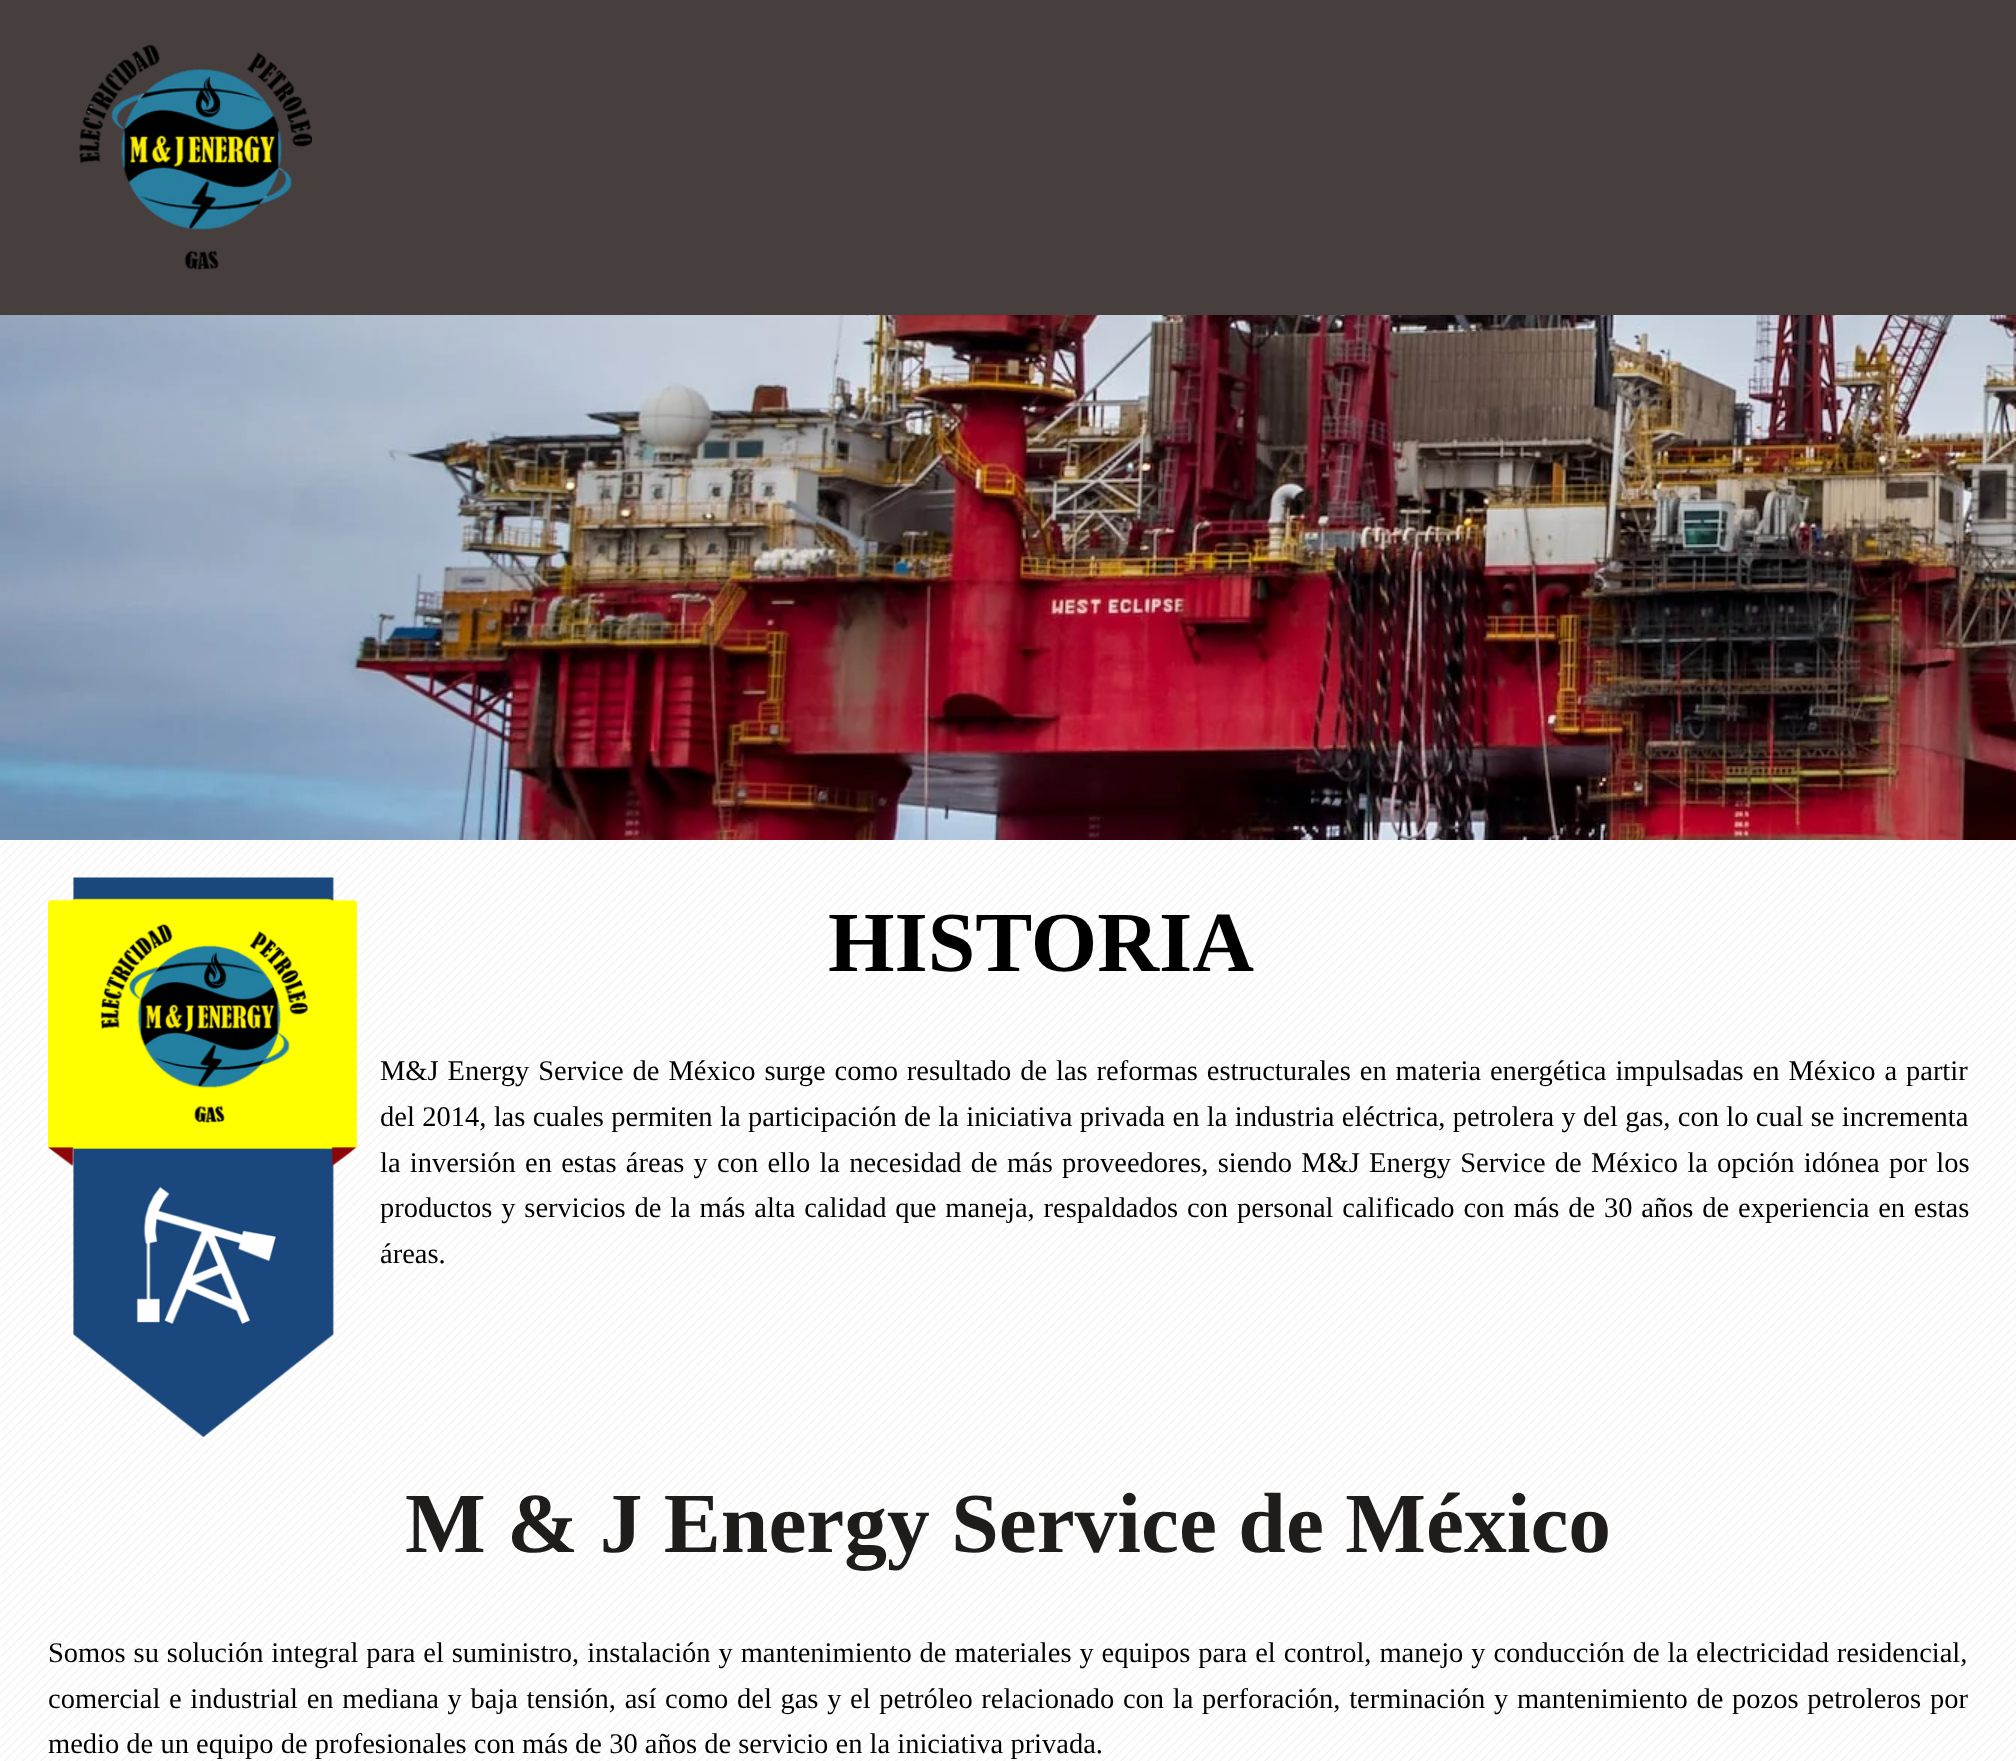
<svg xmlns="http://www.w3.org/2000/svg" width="2016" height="1761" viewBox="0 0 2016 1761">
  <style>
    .t1 { font: bold 85.5px Liberation Serif; fill: #000; }
    .t2 { font: 28.5px Liberation Serif; fill: #000; }
    .t3 { font: bold 85.5px Liberation Serif; fill: #1f1d1c; }
  </style>
  <rect width="100%" height="100%" fill="#fff"/>
  <image x="0" y="840" width="2016" height="921" href="images/1.png"/>
  <rect x="0" y="0" width="2016" height="315" fill="#463f3e"/>
  <image x="79" y="45" width="233" height="225" href="images/2.png"/>
  <image x="0" y="315" width="2016" height="525" href="images/3.png"/>
  <image x="48" y="877" width="309" height="560" href="images/4.png"/>
  <text x="828" y="971" class="t1">HISTORIA</text>
  <text x="380" y="1080" word-spacing="1.8" class="t2">M&amp;J Energy Service de México surge como resultado de las reformas estructurales en materia energética impulsadas en México a partir</text>
  <text x="380" y="1126" word-spacing="0.25" class="t2">del 2014, las cuales permiten la participación de la iniciativa privada en la industria eléctrica, petrolera y del gas, con lo cual se incrementa</text>
  <text x="380" y="1172" word-spacing="2.1" class="t2">la inversión en estas áreas y con ello la necesidad de más proveedores, siendo M&amp;J Energy Service de México la opción idónea por los</text>
  <text x="380" y="1217" word-spacing="1.7" class="t2">productos y servicios de la más alta calidad que maneja, respaldados con personal calificado con más de 30 años de experiencia en estas</text>
  <text x="380" y="1263" class="t2">áreas.</text>
  <text x="405" y="1552" class="t3">M &amp; J Energy Service de México</text>
  <text x="48" y="1662" word-spacing="0.8" class="t2">Somos su solución integral para el suministro, instalación y mantenimiento de materiales y equipos para el control, manejo y conducción de la electricidad residencial,</text>
  <text x="48" y="1708" word-spacing="1.55" class="t2">comercial e industrial en mediana y baja tensión, así como del gas y el petróleo relacionado con la perforación, terminación y mantenimiento de pozos petroleros por</text>
  <text x="48" y="1753" class="t2">medio de un equipo de profesionales con más de 30 años de servicio en la iniciativa privada.</text>
</svg>
